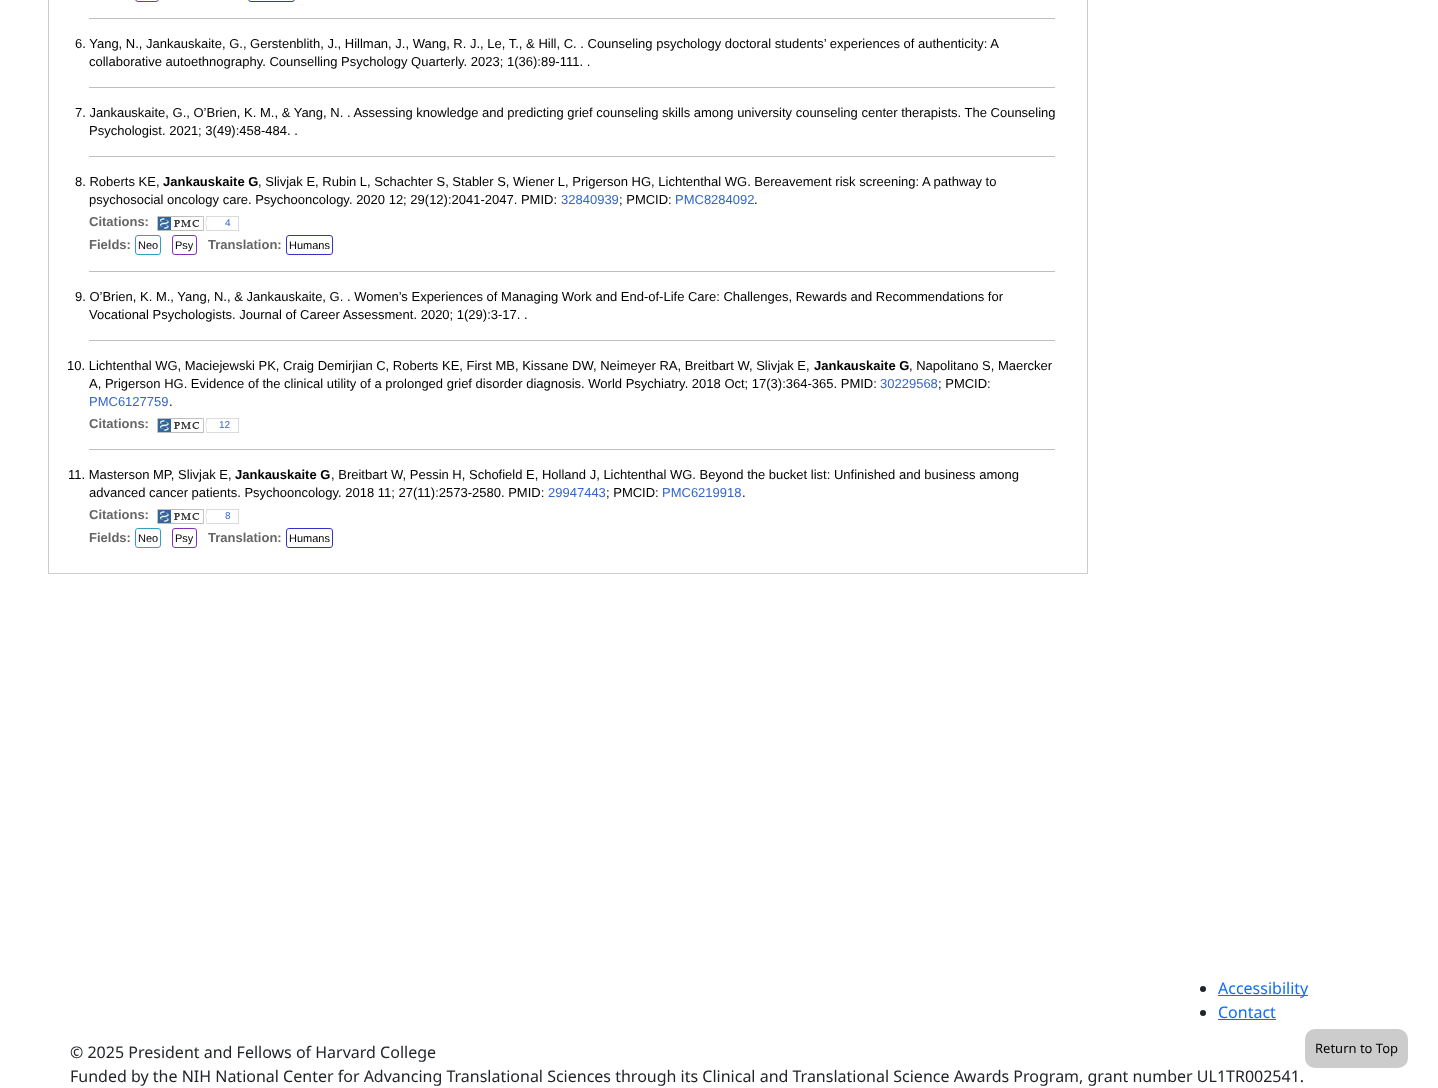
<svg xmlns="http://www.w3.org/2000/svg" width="1438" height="1088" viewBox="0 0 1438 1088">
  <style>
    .t1 { font: 13px Liberation Sans; fill: #000; }
    .t2 { font: bold 13px Liberation Sans; fill: #000; }
    .t3 { font: 13px Liberation Sans; fill: #36c; }
    .t4 { font: bold 13px Liberation Sans; fill: #666; }
    .t5 { font: 10px Liberation Sans; fill: #36c; }
    .t6 { font: 11px Liberation Sans; fill: #000; }
    .t7 { font: 16px Noto Sans; fill: #0d6efd; }
    .t8 { font: 16px Noto Sans; fill: #212529; }
    .t9 { font: 13px Noto Sans; fill: #000; }
  </style>
  <rect width="100%" height="100%" fill="#fff"/>
  <rect x="48.5" y="-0.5" width="1039" height="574" fill="none" stroke="#ccc"/>
  <rect x="135.5" y="-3.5" width="23" height="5" rx="2.5" fill="none" stroke="#8030bf"/>
  <rect x="248.5" y="-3.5" width="46" height="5" rx="2.5" fill="none" stroke="#33c"/>
  <rect x="89" y="18" width="966" height="1" fill="#bfbfbf"/>
  <text x="75" y="48" class="t1">6. Yang, N., Jankauskaite, G., Gerstenblith, J., Hillman, J., Wang, R. J., Le, T., &amp; Hill, C. . Counseling psychology doctoral students’ experiences of authenticity: A</text>
  <text x="89" y="66" class="t1">collaborative autoethnography. Counselling Psychology Quarterly. 2023; 1(36):89-111. .</text>
  <rect x="89" y="87" width="966" height="1" fill="#bfbfbf"/>
  <text x="75" y="117" class="t1">7. Jankauskaite, G., O’Brien, K. M., &amp; Yang, N. . Assessing knowledge and predicting grief counseling skills among university counseling center therapists. The Counseling</text>
  <text x="89" y="135" class="t1">Psychologist. 2021; 3(49):458-484. .</text>
  <rect x="89" y="156" width="966" height="1" fill="#bfbfbf"/>
  <text x="75" y="186" class="t1">8. Roberts KE,</text>
  <text x="163" y="186" class="t2">Jankauskaite G</text>
  <text x="258" y="186" class="t1">, Slivjak E, Rubin L, Schachter S, Stabler S, Wiener L, Prigerson HG, Lichtenthal WG. Bereavement risk screening: A pathway to</text>
  <text x="89" y="204" class="t1">psychosocial oncology care. Psychooncology. 2020 12; 29(12):2041-2047. PMID:</text>
  <text x="561" y="204" class="t3">32840939</text>
  <text x="619" y="204" class="t1">; PMCID:</text>
  <text x="675" y="204" class="t3">PMC8284092</text>
  <text x="754" y="204" class="t1">.</text>
  <text x="89" y="226" class="t4">Citations:</text>
  <image x="157" y="216" width="82" height="15" href="images/1.png"/>
  <text x="225" y="226" class="t5">4</text>
  <text x="89" y="249" class="t4">Fields:</text>
  <rect x="135.5" y="235.5" width="25" height="19" rx="2.5" fill="none" stroke="#30a0bf"/>
  <text x="138" y="249" class="t6">Neo</text>
  <rect x="172.5" y="235.5" width="24" height="19" rx="2.5" fill="none" stroke="#8030bf"/>
  <text x="175" y="249" class="t6">Psy</text>
  <text x="208" y="249" class="t4">Translation:</text>
  <rect x="286.5" y="235.5" width="46" height="19" rx="2.5" fill="none" stroke="#33c"/>
  <text x="289" y="249" class="t6">Humans</text>
  <rect x="89" y="271" width="966" height="1" fill="#bfbfbf"/>
  <text x="75" y="301" class="t1">9. O’Brien, K. M., Yang, N., &amp; Jankauskaite, G. . Women’s Experiences of Managing Work and End-of-Life Care: Challenges, Rewards and Recommendations for</text>
  <text x="89" y="319" class="t1">Vocational Psychologists. Journal of Career Assessment. 2020; 1(29):3-17. .</text>
  <rect x="89" y="340" width="966" height="1" fill="#bfbfbf"/>
  <text x="67" y="370" class="t1">10. Lichtenthal WG, Maciejewski PK, Craig Demirjian C, Roberts KE, First MB, Kissane DW, Neimeyer RA, Breitbart W, Slivjak E,</text>
  <text x="814" y="370" class="t2">Jankauskaite G</text>
  <text x="909" y="370" class="t1">, Napolitano S, Maercker</text>
  <text x="89" y="388" class="t1">A, Prigerson HG. Evidence of the clinical utility of a prolonged grief disorder diagnosis. World Psychiatry. 2018 Oct; 17(3):364-365. PMID:</text>
  <text x="880" y="388" class="t3">30229568</text>
  <text x="938" y="388" class="t1">; PMCID:</text>
  <text x="89" y="406" class="t3">PMC6127759</text>
  <text x="169" y="406" class="t1">.</text>
  <text x="89" y="428" class="t4">Citations:</text>
  <image x="157" y="418" width="82" height="15" href="images/1.png"/>
  <text x="219" y="428" class="t5">12</text>
  <rect x="89" y="449" width="966" height="1" fill="#bfbfbf"/>
  <text x="68" y="479" class="t1">11. Masterson MP, Slivjak E,</text>
  <text x="235" y="479" class="t2">Jankauskaite G</text>
  <text x="331" y="479" class="t1">, Breitbart W, Pessin H, Schofield E, Holland J, Lichtenthal WG. Beyond the bucket list: Unfinished and business among</text>
  <text x="89" y="497" class="t1">advanced cancer patients. Psychooncology. 2018 11; 27(11):2573-2580. PMID:</text>
  <text x="548" y="497" class="t3">29947443</text>
  <text x="606" y="497" class="t1">; PMCID:</text>
  <text x="662" y="497" class="t3">PMC6219918</text>
  <text x="742" y="497" class="t1">.</text>
  <text x="89" y="519" class="t4">Citations:</text>
  <image x="157" y="509" width="82" height="15" href="images/1.png"/>
  <text x="225" y="519" class="t5">8</text>
  <text x="89" y="542" class="t4">Fields:</text>
  <rect x="135.5" y="528.5" width="25" height="19" rx="2.5" fill="none" stroke="#30a0bf"/>
  <text x="138" y="542" class="t6">Neo</text>
  <rect x="172.5" y="528.5" width="24" height="19" rx="2.5" fill="none" stroke="#8030bf"/>
  <text x="175" y="542" class="t6">Psy</text>
  <text x="208" y="542" class="t4">Translation:</text>
  <rect x="286.5" y="528.5" width="46" height="19" rx="2.5" fill="none" stroke="#33c"/>
  <text x="289" y="542" class="t6">Humans</text>
  <circle cx="1203" cy="989" r="3" fill="#212529"/>
  <rect x="1218" y="995" width="90" height="1" fill="#0d6efd"/>
  <text x="1218" y="994" class="t7">Accessibility</text>
  <circle cx="1203" cy="1013" r="3" fill="#212529"/>
  <text x="1218" y="1018" class="t7">Contact</text>
  <rect x="1218" y="1019" width="58" height="1" fill="#0d6efd"/>
  <text x="70" y="1058" class="t8">© 2025 President and Fellows of Harvard College</text>
  <text x="70" y="1082" class="t8">Funded by the NIH National Center for Advancing Translational Sciences through its Clinical and Translational Science Awards Program, grant number UL1TR002541.</text>
  <rect x="1305" y="1029" width="103" height="39" rx="10" fill="#ccc"/>
  <text x="1315" y="1053" class="t9">Return to Top</text>
</svg>
